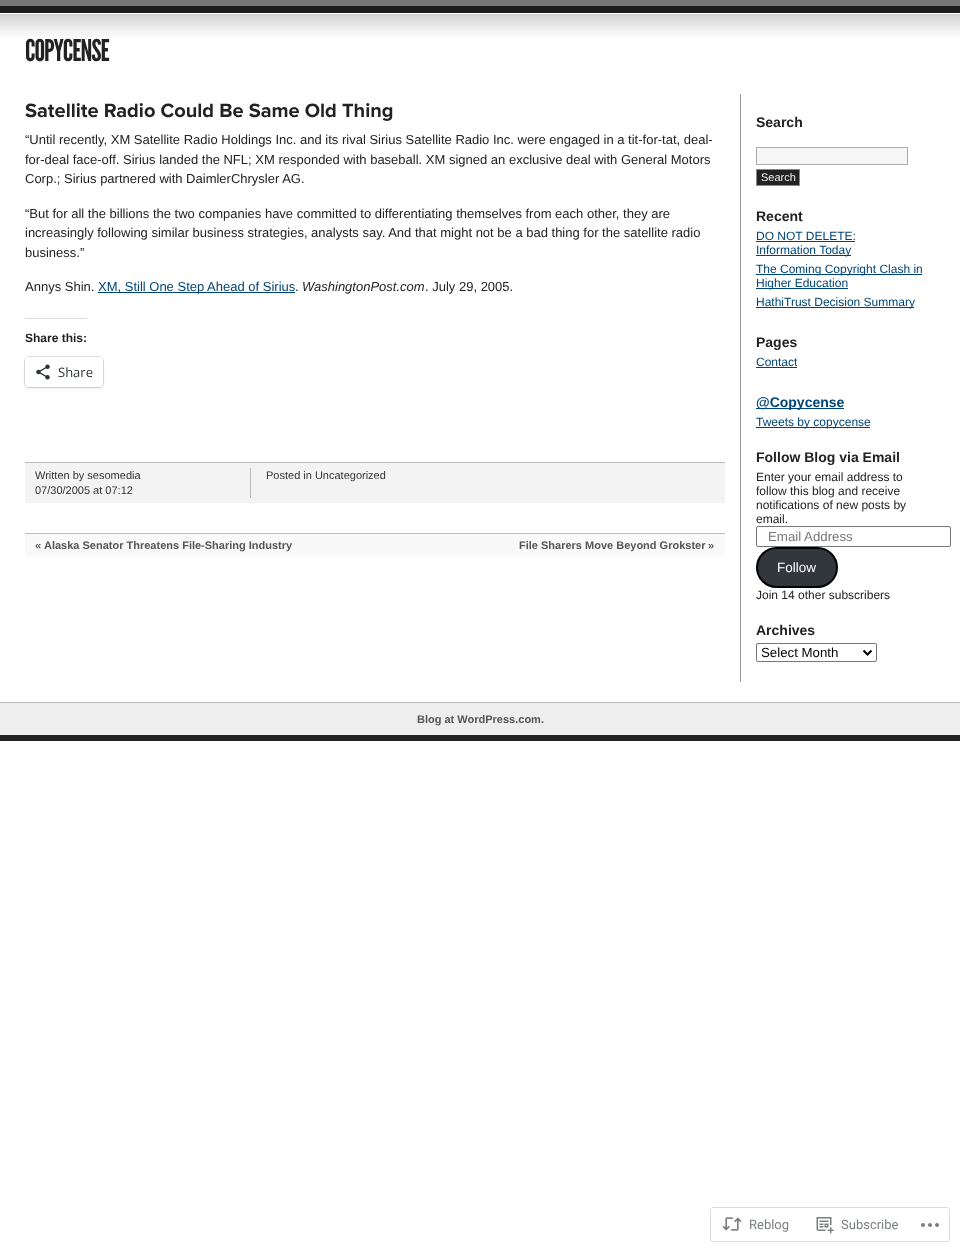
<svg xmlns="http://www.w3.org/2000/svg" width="960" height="1252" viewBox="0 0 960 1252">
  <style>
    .t1 { font: 30px League Gothic; letter-spacing: -1px; fill: #222; }
    .t2 { font: bold 20px Proxima Nova; fill: #222; }
    .t3 { font: 13px Liberation Sans; fill: #222; }
    .t4 { font: 13px Liberation Sans; fill: #047; }
    .t5 { font: italic 13px Liberation Sans; fill: #222; }
    .t6 { font: bold 12px Liberation Sans; fill: #222; }
    .t7 { font: 13px Open Sans; fill: #2c3338; }
    .t8 { font: 11px Liberation Sans; fill: #333; }
    .t9 { font: 11px Liberation Sans; fill: #222; }
    .t10 { font: bold 11px Liberation Sans; fill: #555; }
    .t11 { font: bold 14px Liberation Sans; fill: #222; }
    .t12 { font: 11px Liberation Sans; fill: #eee; }
    .t13 { font: 12px Liberation Sans; fill: #047; }
    .t14 { font: bold 14px Liberation Sans; fill: #047; }
    .t15 { font: 12px Liberation Sans; fill: #222; }
    .t16 { font: 13.25px Liberation Sans; fill: #757575; }
    .t17 { font: 13.5px Liberation Sans; fill: #fff; }
    .t18 { font: 13.25px Liberation Sans; fill: #000; }
    .t19 { font: 13px Roboto; fill: #7b7f85; }
  </style>
  <rect width="100%" height="100%" fill="#fff"/>
  <image x="0" y="0" width="960" height="38" href="images/1.png"/>
  <text x="25" y="61" class="t1">COPYCENSE</text>
  <text x="25" y="117" class="t2">Satellite Radio Could Be Same Old Thing</text>
  <text x="25" y="144" class="t3">“Until recently, XM Satellite Radio Holdings Inc. and its rival Sirius Satellite Radio Inc. were engaged in a tit-for-tat, deal-</text>
  <text x="25" y="164" class="t3">for-deal face-off. Sirius landed the NFL; XM responded with baseball. XM signed an exclusive deal with General Motors</text>
  <text x="25" y="183" class="t3">Corp.; Sirius partnered with DaimlerChrysler AG.</text>
  <text x="25" y="218" class="t3">“But for all the billions the two companies have committed to differentiating themselves from each other, they are</text>
  <text x="25" y="237" class="t3">increasingly following similar business strategies, analysts say. And that might not be a bad thing for the satellite radio</text>
  <text x="25" y="257" class="t3">business.”</text>
  <text x="25" y="291" class="t3">Annys Shin.</text>
  <rect x="98" y="292" width="197" height="1" fill="#047"/>
  <text x="98" y="291" class="t4">XM, Still One Step Ahead of Sirius</text>
  <text x="295" y="291" class="t3">.</text>
  <text x="302" y="291" class="t5">WashingtonPost.com</text>
  <text x="425" y="291" class="t3">. July 29, 2005.</text>
  <rect x="25" y="318" width="62" height="1" fill="#dcdcde"/>
  <text x="25" y="342" class="t6">Share this:</text>
  <rect x="24.5" y="356.5" width="79" height="31" rx="4.5" fill="none" stroke="#e0e0e0"/>
  <rect x="25" y="358" width="78" height="30" rx="4" fill="#0000001f" filter="blur(1px)"/>
  <rect x="25" y="357" width="78" height="30" rx="4" fill="#fff"/>
  <image x="36" y="364" width="14" height="16" href="images/2.png"/>
  <text x="58" y="377" class="t7">Share</text>
  <rect x="25" y="463" width="700" height="40" fill="#f3f3f3"/>
  <rect x="25" y="462" width="700" height="1" fill="#bbb"/>
  <rect x="250" y="468" width="1" height="30" fill="#bbb"/>
  <text x="35" y="479" class="t8">Written by sesomedia</text>
  <text x="35" y="494" class="t8">07/30/2005 at 07:12</text>
  <text x="266" y="479" class="t8">Posted in Uncategorized</text>
  <rect x="25" y="534" width="700" height="22" fill="#f9f9f9"/>
  <rect x="25" y="533" width="700" height="1" fill="#bbb"/>
  <text x="35" y="549" class="t9">«</text>
  <text x="44" y="549" class="t10">Alaska Senator Threatens File-Sharing Industry</text>
  <text x="519" y="549" class="t10">File Sharers Move Beyond Grokster</text>
  <text x="708" y="549" class="t9">»</text>
  <rect x="740" y="94" width="1" height="588" fill="#999"/>
  <text x="756" y="127" class="t11">Search</text>
  <rect x="756.5" y="147.5" width="151" height="17" fill="#f6f6f6" stroke="#aaa"/>
  <rect x="756.5" y="169.5" width="43" height="16" fill="#222" stroke="#888"/>
  <text x="761" y="181" class="t12">Search</text>
  <text x="756" y="221" class="t11">Recent</text>
  <text x="756" y="240" class="t13">DO NOT DELETE:</text>
  <rect x="756" y="241" width="99" height="1" fill="#047"/>
  <rect x="756" y="255" width="95" height="1" fill="#047"/>
  <text x="756" y="254" class="t13">Information Today</text>
  <rect x="756" y="274" width="166" height="1" fill="#047"/>
  <text x="756" y="273" class="t13">The Coming Copyright Clash in</text>
  <rect x="756" y="288" width="92" height="1" fill="#047"/>
  <text x="756" y="287" class="t13">Higher Education</text>
  <rect x="756" y="307" width="158" height="1" fill="#047"/>
  <text x="756" y="306" class="t13">HathiTrust Decision Summary</text>
  <text x="756" y="347" class="t11">Pages</text>
  <text x="756" y="366" class="t13">Contact</text>
  <rect x="756" y="367" width="41" height="1" fill="#047"/>
  <rect x="756" y="408" width="88" height="1" fill="#047"/>
  <text x="756" y="407" class="t14">@Copycense</text>
  <rect x="756" y="427" width="114" height="1" fill="#047"/>
  <text x="756" y="426" class="t13">Tweets by copycense</text>
  <text x="756" y="462" class="t11">Follow Blog via Email</text>
  <text x="756" y="481" class="t15">Enter your email address to</text>
  <text x="756" y="495" class="t15">follow this blog and receive</text>
  <text x="756" y="509" class="t15">notifications of new posts by</text>
  <text x="756" y="523" class="t15">email.</text>
  <rect x="756.5" y="526.5" width="194" height="20" rx="1.5" fill="none" stroke="#767676"/>
  <text x="768" y="541" class="t16">Email Address</text>
  <rect x="757" y="548" width="80" height="39" rx="19.5" fill="#32373c" stroke="#000" stroke-width="2"/>
  <text x="777" y="572" class="t17">Follow</text>
  <text x="756" y="599" class="t15">Join 14 other subscribers</text>
  <text x="756" y="635" class="t11">Archives</text>
  <rect x="756.5" y="643.5" width="120" height="18" rx="1.5" fill="none" stroke="#767676"/>
  <path d="M863.5 650.5L867.5 654.5L871.5 650.5" fill="none" stroke="#000" stroke-width="2"/>
  <text x="761" y="657" class="t18">Select Month</text>
  <rect x="0" y="703" width="960" height="32" fill="#eee"/>
  <rect x="0" y="702" width="960" height="1" fill="#bbb"/>
  <rect x="0" y="735" width="960" height="6" fill="#222"/>
  <text x="417" y="723" class="t10">Blog at WordPress.com.</text>
  <rect x="710.5" y="1207.5" width="239" height="34" rx="2.5" fill="none" stroke="#dddddf"/>
  <image x="722" y="1217" width="20" height="14" href="images/3.png"/>
  <text x="749" y="1229" class="t19">Reblog</text>
  <image x="816" y="1217" width="18" height="17" href="images/4.png"/>
  <text x="841" y="1229" class="t19">Subscribe</text>
  <image x="921" y="1223" width="18" height="4" href="images/5.png"/>
</svg>
